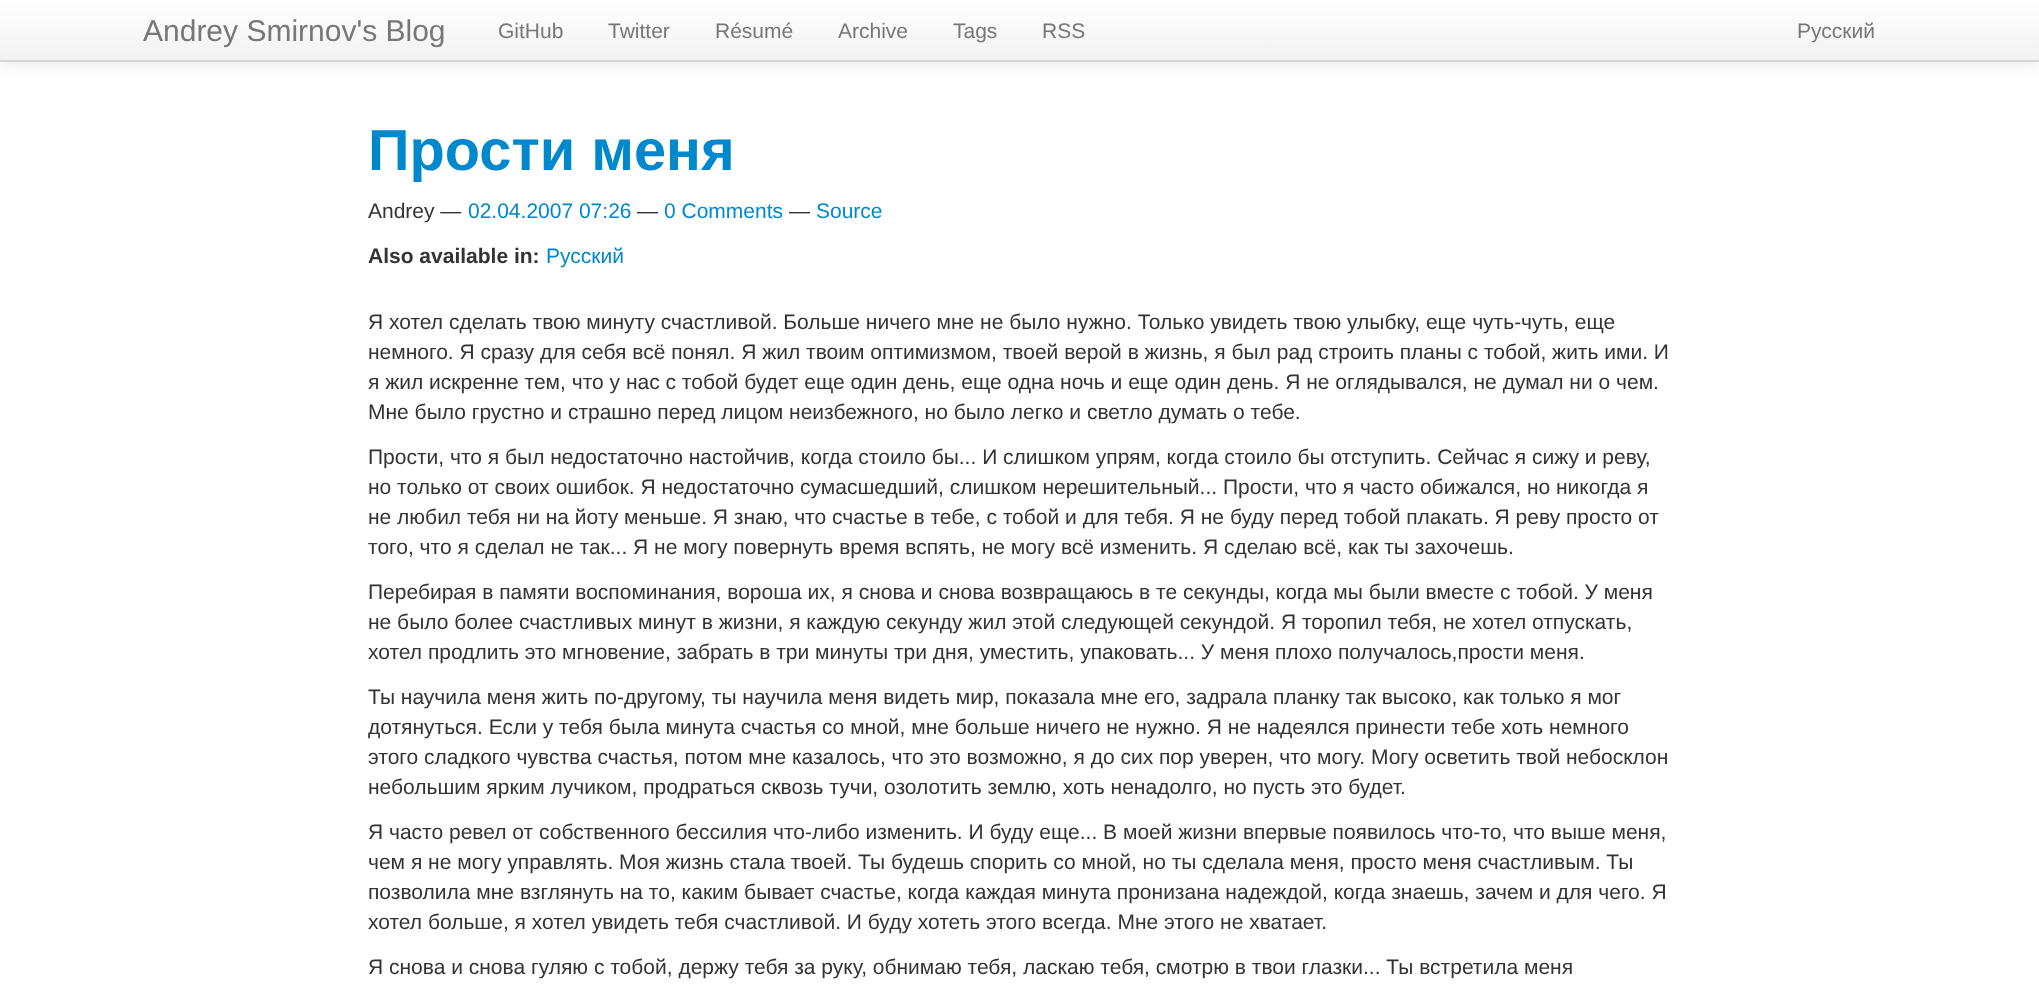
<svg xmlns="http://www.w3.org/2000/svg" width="2039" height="999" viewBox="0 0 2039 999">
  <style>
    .t1 { font: 30px Liberation Sans; fill: #777; }
    .t2 { font: 21px Liberation Sans; fill: #777; }
    .t3 { font: bold 57.75px Liberation Sans; fill: #08c; }
    .t4 { font: 21px Liberation Sans; fill: #333; }
    .t5 { font: 21px Liberation Sans; fill: #08c; }
    .t6 { font: bold 21px Liberation Sans; fill: #333; }
  </style>
  <defs>
    <linearGradient id="g1" gradientUnits="userSpaceOnUse" x1="1020" y1="0" x2="1020" y2="60"><stop offset="0" stop-color="#fff"/><stop offset="1" stop-color="#f2f2f2"/></linearGradient>
  </defs>
  <rect width="100%" height="100%" fill="#fff"/>
  <rect x="0" y="2" width="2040" height="61" fill="#0000001a" filter="blur(7.5px)"/>
  <rect x="0" y="0" width="2039" height="60" fill="url(#g1)"/>
  <rect x="0" y="60" width="2039" height="2" fill="#d4d4d4"/>
  <text x="143" y="41" class="t1">Andrey Smirnov's Blog</text>
  <text x="498" y="38" class="t2">GitHub</text>
  <text x="608" y="38" class="t2">Twitter</text>
  <text x="715" y="38" class="t2">Résumé</text>
  <text x="838" y="38" class="t2">Archive</text>
  <text x="953" y="38" class="t2">Tags</text>
  <text x="1042" y="38" class="t2">RSS</text>
  <text x="1797" y="38" class="t2">Русский</text>
  <text x="368" y="170" class="t3">Прости меня</text>
  <text x="368" y="218" class="t4">Andrey —</text>
  <text x="468" y="218" class="t5">02.04.2007 07:26</text>
  <text x="637" y="218" class="t4">—</text>
  <text x="664" y="218" class="t5">0 Comments</text>
  <text x="789" y="218" class="t4">—</text>
  <text x="816" y="218" class="t5">Source</text>
  <text x="368" y="263" class="t6">Also available in:</text>
  <text x="546" y="263" class="t5">Русский</text>
  <text x="368" y="329" class="t4">Я хотел сделать твою минуту счастливой. Больше ничего мне не было нужно. Только увидеть твою улыбку, еще чуть-чуть, еще</text>
  <text x="368" y="359" class="t4">немного. Я сразу для себя всё понял. Я жил твоим оптимизмом, твоей верой в жизнь, я был рад строить планы с тобой, жить ими. И</text>
  <text x="368" y="389" class="t4">я жил искренне тем, что у нас с тобой будет еще один день, еще одна ночь и еще один день. Я не оглядывался, не думал ни о чем.</text>
  <text x="368" y="419" class="t4">Мне было грустно и страшно перед лицом неизбежного, но было легко и светло думать о тебе.</text>
  <text x="368" y="464" class="t4">Прости, что я был недостаточно настойчив, когда стоило бы... И слишком упрям, когда стоило бы отступить. Сейчас я сижу и реву,</text>
  <text x="368" y="494" class="t4">но только от своих ошибок. Я недостаточно сумасшедший, слишком нерешительный... Прости, что я часто обижался, но никогда я</text>
  <text x="368" y="524" class="t4">не любил тебя ни на йоту меньше. Я знаю, что счастье в тебе, с тобой и для тебя. Я не буду перед тобой плакать. Я реву просто от</text>
  <text x="368" y="554" class="t4">того, что я сделал не так... Я не могу повернуть время вспять, не могу всё изменить. Я сделаю всё, как ты захочешь.</text>
  <text x="368" y="599" class="t4">Перебирая в памяти воспоминания, вороша их, я снова и снова возвращаюсь в те секунды, когда мы были вместе с тобой. У меня</text>
  <text x="368" y="629" class="t4">не было более счастливых минут в жизни, я каждую секунду жил этой следующей секундой. Я торопил тебя, не хотел отпускать,</text>
  <text x="368" y="659" class="t4">хотел продлить это мгновение, забрать в три минуты три дня, уместить, упаковать... У меня плохо получалось,прости меня.</text>
  <text x="368" y="704" class="t4">Ты научила меня жить по-другому, ты научила меня видеть мир, показала мне его, задрала планку так высоко, как только я мог</text>
  <text x="368" y="734" class="t4">дотянуться. Если у тебя была минута счастья со мной, мне больше ничего не нужно. Я не надеялся принести тебе хоть немного</text>
  <text x="368" y="764" class="t4">этого сладкого чувства счастья, потом мне казалось, что это возможно, я до сих пор уверен, что могу. Могу осветить твой небосклон</text>
  <text x="368" y="794" class="t4">небольшим ярким лучиком, продраться сквозь тучи, озолотить землю, хоть ненадолго, но пусть это будет.</text>
  <text x="368" y="839" class="t4">Я часто ревел от собственного бессилия что-либо изменить. И буду еще... В моей жизни впервые появилось что-то, что выше меня,</text>
  <text x="368" y="869" class="t4">чем я не могу управлять. Моя жизнь стала твоей. Ты будешь спорить со мной, но ты сделала меня, просто меня счастливым. Ты</text>
  <text x="368" y="899" class="t4">позволила мне взглянуть на то, каким бывает счастье, когда каждая минута пронизана надеждой, когда знаешь, зачем и для чего. Я</text>
  <text x="368" y="929" class="t4">хотел больше, я хотел увидеть тебя счастливой. И буду хотеть этого всегда. Мне этого не хватает.</text>
  <text x="368" y="974" class="t4">Я снова и снова гуляю с тобой, держу тебя за руку, обнимаю тебя, ласкаю тебя, смотрю в твои глазки... Ты встретила меня</text>
</svg>
